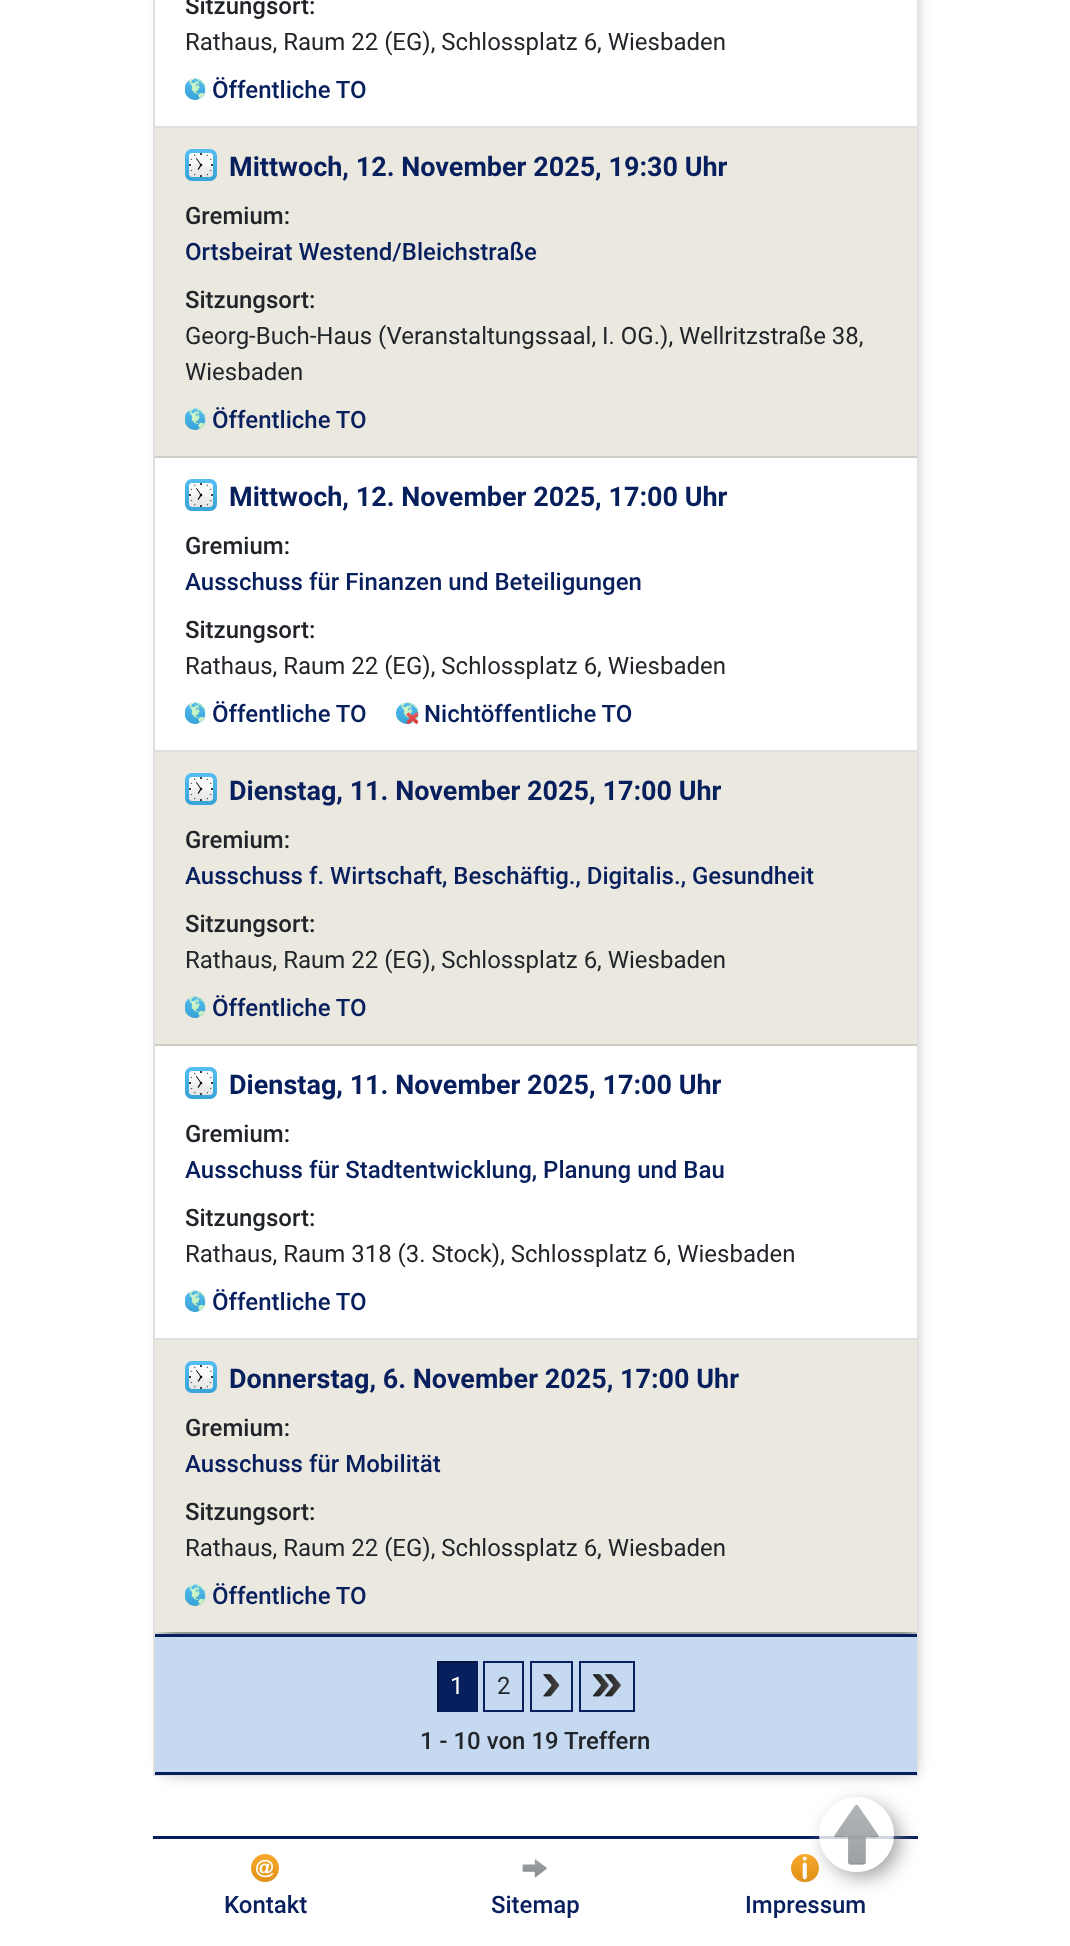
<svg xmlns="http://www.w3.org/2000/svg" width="1070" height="1946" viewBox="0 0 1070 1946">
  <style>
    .t1 { font: 500 24px Roboto; fill: #212529; }
    .t2 { font: 24px Roboto; fill: #212529; }
    .t3 { font: 500 24px Roboto; fill: #081f5d; }
    .t4 { font: bold 27px Roboto; fill: #081f5d; }
    .t5 { font: 24px Roboto; fill: #fff; }
  </style>
  <defs>
    <clipPath id="clip1"><path d="M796 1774H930V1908H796ZM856.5 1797C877 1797 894 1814 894 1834.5C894 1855 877 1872 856.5 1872C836 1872 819 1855 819 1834.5C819 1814 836 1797 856.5 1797Z" clip-rule="evenodd"/></clipPath>
  </defs>
  <rect width="100%" height="100%" fill="#fff"/>
  <rect x="165" y="-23" width="750" height="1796" fill="#aaa" filter="blur(7.5px)"/>
  <rect x="154" y="-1" width="763" height="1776" fill="none" stroke="#dfdfdf" stroke-width="2"/>
  <rect x="155" y="1632" width="762" height="2" fill="#0000001f"/>
  <rect x="155" y="0" width="762" height="126" fill="#fff"/>
  <rect x="155" y="126" width="762" height="2" fill="#dfdfdf"/>
  <text x="185" y="14" class="t1">Sitzungsort:</text>
  <text x="185" y="50" class="t2">Rathaus, Raum 22 (EG), Schlossplatz 6, Wiesbaden</text>
  <image x="185" y="78" width="21" height="22" href="images/1.png"/>
  <text x="212" y="98" class="t3">Öffentliche TO</text>
  <rect x="155" y="128" width="762" height="328" fill="#ebe8e0"/>
  <rect x="155" y="456" width="762" height="2" fill="#cecbc4"/>
  <image x="185" y="149" width="32" height="32" href="images/2.png"/>
  <text x="229" y="176" class="t4">Mittwoch, 12. November 2025, 19:30 Uhr</text>
  <text x="185" y="224" class="t1">Gremium:</text>
  <text x="185" y="260" class="t3">Ortsbeirat Westend/Bleichstraße</text>
  <text x="185" y="308" class="t1">Sitzungsort:</text>
  <text x="185" y="344" class="t2">Georg-Buch-Haus (Veranstaltungssaal, I. OG.), Wellritzstraße 38,</text>
  <text x="185" y="380" class="t2">Wiesbaden</text>
  <image x="185" y="408" width="21" height="22" href="images/3.png"/>
  <text x="212" y="428" class="t3">Öffentliche TO</text>
  <rect x="155" y="458" width="762" height="292" fill="#fff"/>
  <rect x="155" y="750" width="762" height="2" fill="#dfdfdf"/>
  <image x="185" y="479" width="32" height="32" href="images/4.png"/>
  <text x="229" y="506" class="t4">Mittwoch, 12. November 2025, 17:00 Uhr</text>
  <text x="185" y="554" class="t1">Gremium:</text>
  <text x="185" y="590" class="t3">Ausschuss für Finanzen und Beteiligungen</text>
  <text x="185" y="638" class="t1">Sitzungsort:</text>
  <text x="185" y="674" class="t2">Rathaus, Raum 22 (EG), Schlossplatz 6, Wiesbaden</text>
  <image x="185" y="702" width="21" height="22" href="images/5.png"/>
  <text x="212" y="722" class="t3">Öffentliche TO</text>
  <image x="396" y="702" width="23" height="22" href="images/6.png"/>
  <text x="424" y="722" class="t3">Nichtöffentliche TO</text>
  <rect x="155" y="752" width="762" height="292" fill="#ebe8e0"/>
  <rect x="155" y="1044" width="762" height="2" fill="#cecbc4"/>
  <image x="185" y="773" width="32" height="32" href="images/2.png"/>
  <text x="229" y="800" class="t4">Dienstag, 11. November 2025, 17:00 Uhr</text>
  <text x="185" y="848" class="t1">Gremium:</text>
  <text x="185" y="884" class="t3">Ausschuss f. Wirtschaft, Beschäftig., Digitalis., Gesundheit</text>
  <text x="185" y="932" class="t1">Sitzungsort:</text>
  <text x="185" y="968" class="t2">Rathaus, Raum 22 (EG), Schlossplatz 6, Wiesbaden</text>
  <image x="185" y="996" width="21" height="22" href="images/3.png"/>
  <text x="212" y="1016" class="t3">Öffentliche TO</text>
  <rect x="155" y="1046" width="762" height="292" fill="#fff"/>
  <rect x="155" y="1338" width="762" height="2" fill="#dfdfdf"/>
  <image x="185" y="1067" width="32" height="32" href="images/4.png"/>
  <text x="229" y="1094" class="t4">Dienstag, 11. November 2025, 17:00 Uhr</text>
  <text x="185" y="1142" class="t1">Gremium:</text>
  <text x="185" y="1178" class="t3">Ausschuss für Stadtentwicklung, Planung und Bau</text>
  <text x="185" y="1226" class="t1">Sitzungsort:</text>
  <text x="185" y="1262" class="t2">Rathaus, Raum 318 (3. Stock), Schlossplatz 6, Wiesbaden</text>
  <image x="185" y="1290" width="21" height="22" href="images/5.png"/>
  <text x="212" y="1310" class="t3">Öffentliche TO</text>
  <rect x="155" y="1340" width="762" height="292" fill="#ebe8e0"/>
  <image x="185" y="1361" width="32" height="32" href="images/2.png"/>
  <text x="229" y="1388" class="t4">Donnerstag, 6. November 2025, 17:00 Uhr</text>
  <text x="185" y="1436" class="t1">Gremium:</text>
  <text x="185" y="1472" class="t3">Ausschuss für Mobilität</text>
  <text x="185" y="1520" class="t1">Sitzungsort:</text>
  <text x="185" y="1556" class="t2">Rathaus, Raum 22 (EG), Schlossplatz 6, Wiesbaden</text>
  <image x="185" y="1584" width="21" height="22" href="images/7.png"/>
  <text x="212" y="1604" class="t3">Öffentliche TO</text>
  <rect x="155" y="1637" width="762" height="135" fill="#c5d9f1"/>
  <rect x="155" y="1634" width="762" height="3" fill="#081f5d"/>
  <rect x="155" y="1772" width="762" height="3" fill="#081f5d"/>
  <rect x="439" y="1663" width="37" height="49" fill="#081f5d"/>
  <rect x="437" y="1661" width="40" height="2" fill="#05153e"/>
  <rect x="476" y="1661" width="2" height="51" fill="#081f5d"/>
  <rect x="437" y="1661" width="2" height="51" fill="#05153e"/>
  <text x="450" y="1694" class="t5">1</text>
  <rect x="484" y="1662" width="39" height="49" fill="none" stroke="#081f5d" stroke-width="2"/>
  <text x="497" y="1694" class="t2">2</text>
  <rect x="531" y="1662" width="41" height="49" fill="none" stroke="#081f5d" stroke-width="2"/>
  <image x="543" y="1674" width="17" height="23" href="images/8.png"/>
  <rect x="580" y="1662" width="54" height="49" fill="none" stroke="#081f5d" stroke-width="2"/>
  <image x="593" y="1674" width="28" height="23" href="images/9.png"/>
  <text x="420" y="1749" class="t1">1 - 10 von 19 Treffern</text>
  <rect x="153" y="1836" width="765" height="3" fill="#081f5d"/>
  <image x="791" y="1854" width="28" height="29" href="images/13.png"/>
  <g clip-path="url(#clip1)">
    <rect x="827" y="1805" width="72" height="72" rx="36" fill="#888888d1" filter="blur(10px)"/>
  </g>
  <circle cx="856.5" cy="1834.5" r="37.5" fill="#ffffffd1"/>
  <image x="834" y="1805" width="45" height="60" href="images/10.png"/>
  <image x="251" y="1854" width="28" height="29" href="images/11.png"/>
  <text x="224" y="1913" class="t3">Kontakt</text>
  <image x="522" y="1859" width="25" height="19" href="images/12.png"/>
  <text x="491" y="1913" class="t3">Sitemap</text>
  <text x="745" y="1913" class="t3">Impressum</text>
</svg>
